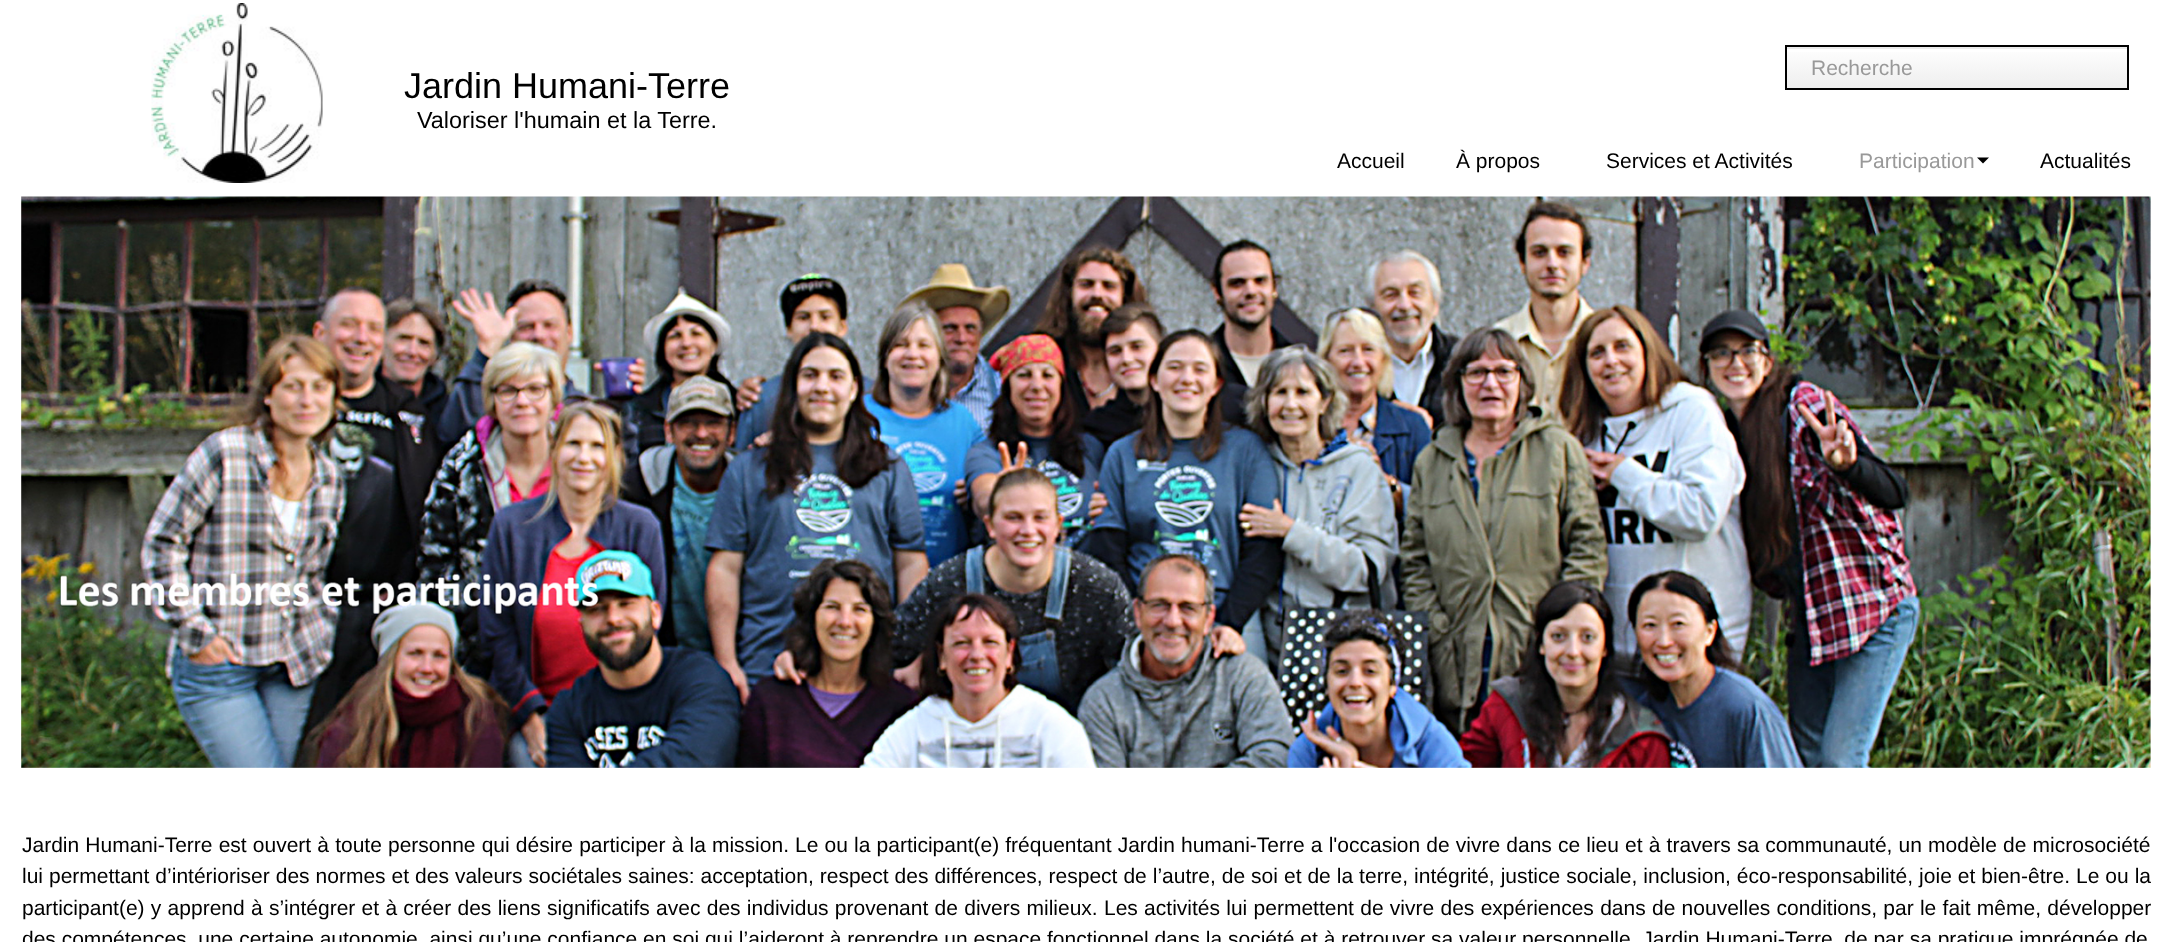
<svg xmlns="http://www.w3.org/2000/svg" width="2172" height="942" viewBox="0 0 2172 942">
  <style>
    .t1 { font: 21px Liberation Sans; fill: #999; }
    .t2 { font: 36px Liberation Sans; fill: #000; }
    .t3 { font: 23.4px Liberation Sans; fill: #000; }
    .t4 { font: 21px Liberation Sans; fill: #000; }
  </style>
  <defs>
    <linearGradient id="g1" gradientUnits="userSpaceOnUse" x1="1957" y1="46" x2="1957" y2="89"><stop offset="0" stop-color="#fff"/><stop offset="1" stop-color="#eee"/></linearGradient>
  </defs>
  <rect width="100%" height="100%" fill="#fff"/>
  <rect x="1787" y="52" width="340" height="36" fill="url(#g1)"/>
  <rect x="1787" y="47" width="340" height="2" fill="#ebebeb"/>
  <rect x="1786" y="46" width="342" height="43" fill="none" stroke="#000" stroke-width="2"/>
  <text x="1811" y="75" class="t1">Recherche</text>
  <image x="151" y="3" width="172" height="180" href="images/1.png"/>
  <text x="404" y="98" class="t2">Jardin Humani-Terre</text>
  <text x="417" y="128" class="t3">Valoriser l'humain et la Terre.</text>
  <text x="1337" y="168" class="t4">Accueil</text>
  <text x="1456" y="168" class="t4">À propos</text>
  <text x="1606" y="168" class="t4">Services et Activités</text>
  <text x="1859" y="168" class="t1">Participation</text>
  <path d="M1977 157.5H1989L1983 163.5Z" fill="#000"/>
  <text x="2040" y="168" class="t4">Actualités</text>
  <image x="21" y="196" width="2130" height="572" href="images/2.png"/>
  <text x="22" y="852" word-spacing="0.3" class="t4">Jardin Humani-Terre est ouvert à toute personne qui désire participer à la mission. Le ou la participant(e) fréquentant Jardin humani-Terre a l'occasion de vivre dans ce lieu et à travers sa communauté, un modèle de microsociété</text>
  <text x="22" y="883" word-spacing="0.15" class="t4">lui permettant d’intérioriser des normes et des valeurs sociétales saines: acceptation, respect des différences, respect de l’autre, de soi et de la terre, intégrité, justice sociale, inclusion, éco-responsabilité, joie et bien-être. Le ou la</text>
  <text x="22" y="915" word-spacing="0.45" class="t4">participant(e) y apprend à s’intégrer et à créer des liens significatifs avec des individus provenant de divers milieux. Les activités lui permettent de vivre des expériences dans de nouvelles conditions, par le fait même, développer</text>
  <text x="22" y="946" class="t4">des compétences, une certaine autonomie, ainsi qu’une confiance en soi qui l’aideront à reprendre un espace fonctionnel dans la société et à retrouver sa valeur personnelle. Jardin Humani-Terre, de par sa pratique imprégnée de</text>
</svg>
